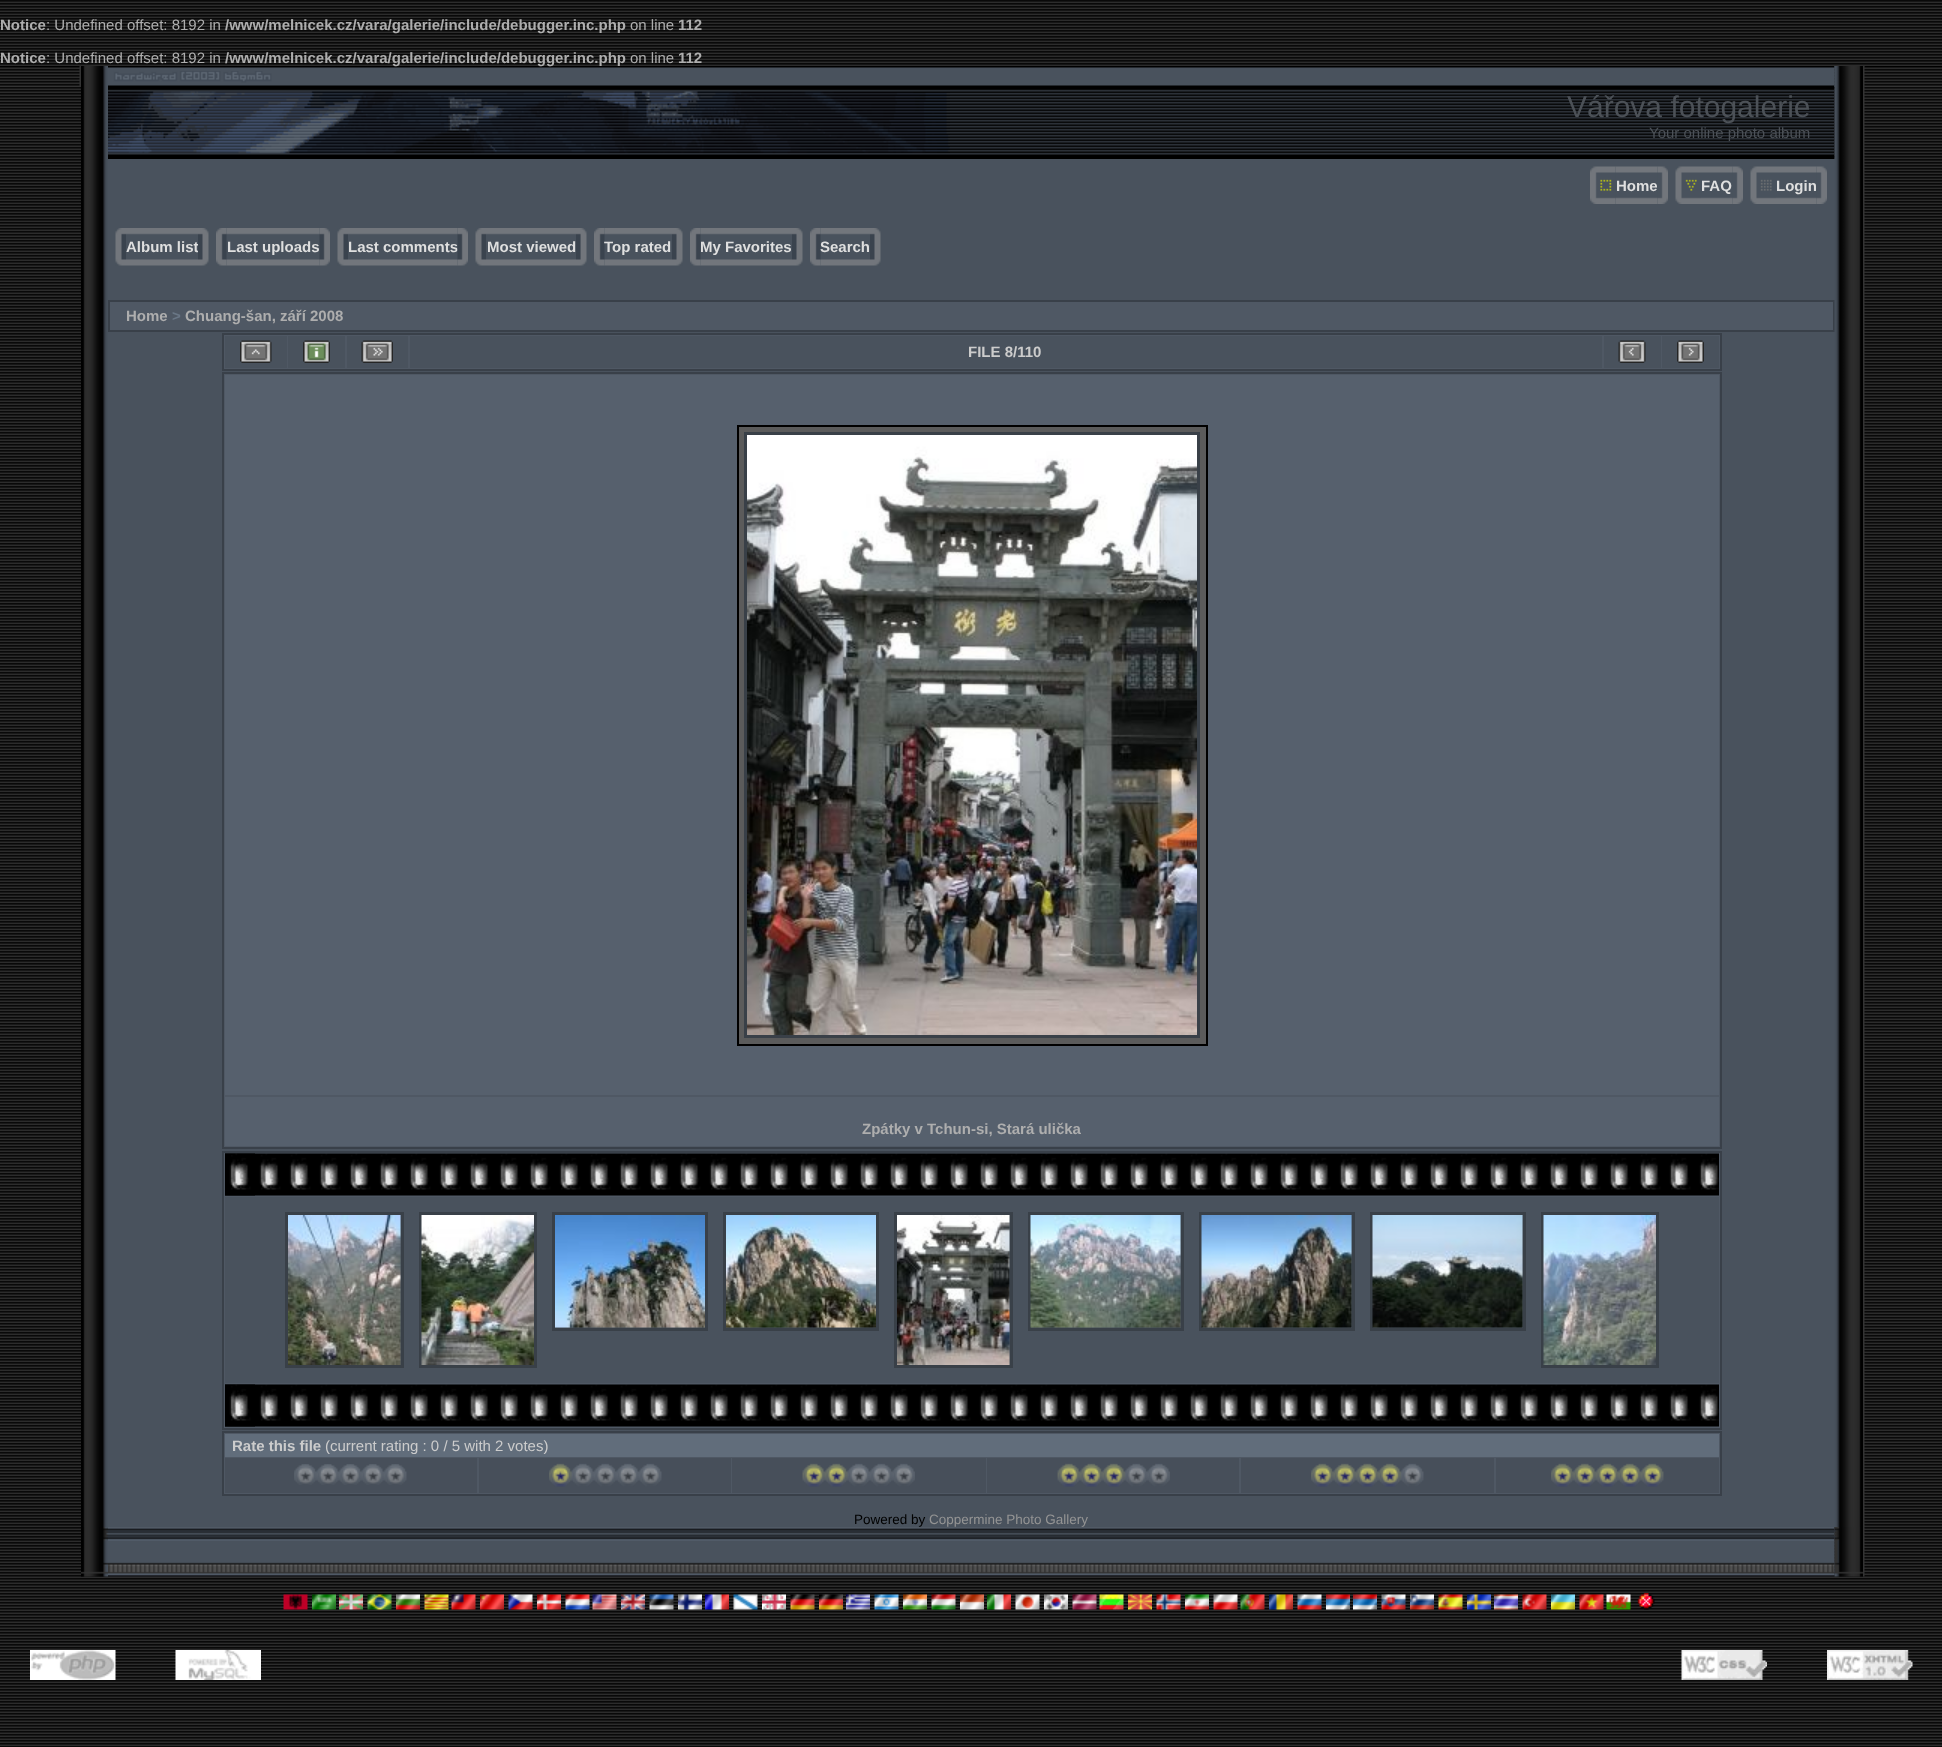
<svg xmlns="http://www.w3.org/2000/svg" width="1942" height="1747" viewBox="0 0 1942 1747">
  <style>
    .t1 { font: bold 15px Liberation Sans; fill: #aeaeae; }
    .t2 { font: 15px Liberation Sans; fill: #aeaeae; }
    .t3 { font: 30px Liberation Sans; fill: #4c5157; }
    .t4 { font: 15px Liberation Sans; fill: #4c5157; }
    .t5 { font: bold 15px Liberation Sans; fill: #dfdfdf; }
    .t6 { font: bold 15px Liberation Sans; fill: #6a7786; }
    .t7 { font: bold 15px Liberation Sans; fill: #ccc; }
    .t8 { font: 15px Liberation Sans; fill: #ccc; }
    .t9 { font: 13.5px Liberation Sans; fill: #000; }
    .t10 { font: 13.5px Liberation Sans; fill: #949494; }
  </style>
  <rect width="100%" height="100%" fill="#fff"/>
  <image x="0" y="0" width="1942" height="1747" href="images/1.png"/>
  <text x="0" y="30" class="t1">Notice</text>
  <text x="46" y="30" class="t2">: Undefined offset: 8192 in</text>
  <text x="225" y="30" class="t1">/www/melnicek.cz/vara/galerie/include/debugger.inc.php</text>
  <text x="630" y="30" class="t2">on line</text>
  <text x="678" y="30" class="t1">112</text>
  <text x="0" y="63" class="t1">Notice</text>
  <text x="46" y="63" class="t2">: Undefined offset: 8192 in</text>
  <image x="108" y="66" width="1727" height="93" href="images/4.png"/>
  <text x="225" y="63" class="t1">/www/melnicek.cz/vara/galerie/include/debugger.inc.php</text>
  <text x="630" y="63" class="t2">on line</text>
  <text x="678" y="63" class="t1">112</text>
  <image x="0" y="66" width="81" height="21" href="images/2.png"/>
  <image x="81" y="66" width="27" height="93" href="images/3.png"/>
  <image x="108" y="71" width="842" height="83" href="images/5.png"/>
  <text x="1567" y="117" class="t3">Vářova fotogalerie</text>
  <text x="1649" y="138" class="t4">Your online photo album</text>
  <image x="1834" y="66" width="29" height="93" href="images/6.png"/>
  <rect x="1834" y="66" width="1" height="21" fill="#46505a80"/>
  <image x="1863" y="66" width="2" height="1511" href="images/7.png"/>
  <image x="1865" y="66" width="77" height="21" href="images/8.png"/>
  <image x="81" y="159" width="27" height="1368" href="images/9.png"/>
  <rect x="108" y="159" width="1727" height="1368" fill="#49525d"/>
  <image x="1615" y="166" width="43" height="38" href="images/11.png"/>
  <image x="1590" y="166" width="26" height="38" href="images/10.png"/>
  <text x="1616" y="191" class="t5">Home</text>
  <image x="1657" y="166" width="11" height="38" href="images/12.png"/>
  <image x="1675" y="166" width="26" height="38" href="images/13.png"/>
  <image x="1701" y="166" width="32" height="38" href="images/14.png"/>
  <text x="1701" y="191" class="t5">FAQ</text>
  <image x="1732" y="166" width="11" height="38" href="images/15.png"/>
  <image x="1750" y="166" width="26" height="38" href="images/16.png"/>
  <image x="1776" y="166" width="41" height="38" href="images/17.png"/>
  <text x="1776" y="191" class="t5">Login</text>
  <image x="1816" y="166" width="11" height="38" href="images/18.png"/>
  <image x="115" y="228" width="11" height="38" href="images/19.png"/>
  <image x="126" y="228" width="72" height="38" href="images/20.png"/>
  <text x="126" y="252" class="t5">Album list</text>
  <image x="198" y="228" width="11" height="38" href="images/21.png"/>
  <image x="226" y="228" width="94" height="38" href="images/23.png"/>
  <image x="216" y="228" width="11" height="38" href="images/22.png"/>
  <text x="227" y="252" class="t5">Last uploads</text>
  <image x="319" y="228" width="11" height="38" href="images/24.png"/>
  <image x="337" y="228" width="11" height="38" href="images/19.png"/>
  <image x="348" y="228" width="110" height="38" href="images/25.png"/>
  <text x="348" y="252" class="t5">Last comments</text>
  <image x="457" y="228" width="11" height="38" href="images/26.png"/>
  <image x="475" y="228" width="11" height="38" href="images/19.png"/>
  <image x="486" y="228" width="90" height="38" href="images/27.png"/>
  <text x="487" y="252" class="t5">Most viewed</text>
  <image x="576" y="228" width="11" height="38" href="images/28.png"/>
  <image x="604" y="228" width="68" height="38" href="images/30.png"/>
  <image x="594" y="228" width="11" height="38" href="images/29.png"/>
  <text x="604" y="252" class="t5">Top rated</text>
  <image x="672" y="228" width="11" height="38" href="images/21.png"/>
  <image x="700" y="228" width="92" height="38" href="images/31.png"/>
  <image x="690" y="228" width="11" height="38" href="images/22.png"/>
  <text x="700" y="252" class="t5">My Favorites</text>
  <image x="792" y="228" width="11" height="38" href="images/21.png"/>
  <image x="820" y="228" width="50" height="38" href="images/32.png"/>
  <image x="810" y="228" width="11" height="38" href="images/22.png"/>
  <text x="820" y="252" class="t5">Search</text>
  <image x="870" y="228" width="11" height="38" href="images/21.png"/>
  <rect x="109" y="301" width="1725" height="30" fill="#4f5864" stroke="#394049" stroke-width="2"/>
  <text x="126" y="321" class="t1">Home</text>
  <text x="172" y="321" class="t6">&gt;</text>
  <text x="185" y="321" class="t1">Chuang-šan, září 2008</text>
  <rect x="223" y="334" width="1498" height="36" fill="#4f5864" stroke="#394049" stroke-width="2"/>
  <rect x="225" y="336" width="62" height="32" fill="#49525d"/>
  <image x="240" y="340" width="32" height="23" href="images/33.png"/>
  <rect x="288" y="336" width="57" height="32" fill="#49525d"/>
  <image x="303" y="340" width="27" height="23" href="images/34.png"/>
  <rect x="347" y="336" width="61" height="32" fill="#49525d"/>
  <image x="361" y="340" width="32" height="23" href="images/35.png"/>
  <rect x="410" y="336" width="1192" height="32" fill="#49525d"/>
  <text x="968" y="357" class="t7">FILE 8/110</text>
  <rect x="1604" y="336" width="57" height="32" fill="#49525d"/>
  <image x="1618" y="340" width="28" height="23" href="images/36.png"/>
  <rect x="1662" y="336" width="57" height="32" fill="#49525d"/>
  <image x="1677" y="340" width="27" height="23" href="images/37.png"/>
  <rect x="223" y="373" width="1498" height="775" fill="#4f5864" stroke="#394049" stroke-width="2"/>
  <rect x="225" y="375" width="1494" height="720" fill="#56606d"/>
  <rect x="738" y="426" width="469" height="619" fill="#5b5b5b" stroke="#000" stroke-width="2"/>
  <rect x="745.5" y="433.5" width="453" height="603" fill="none" stroke="#394048" stroke-width="3"/>
  <image x="747" y="435" width="450" height="600" href="images/38.png"/>
  <rect x="225" y="1097" width="1494" height="49" fill="#56606d"/>
  <text x="862" y="1134" class="t1">Zpátky v Tchun-si, Stará ulička</text>
  <rect x="223" y="1152" width="1498" height="277" fill="#4f5864" stroke="#394049" stroke-width="2"/>
  <image x="225" y="1153" width="1494" height="43" href="images/39.png"/>
  <image x="225" y="1153" width="30" height="43" href="images/40.png"/>
  <rect x="225" y="1197" width="1494" height="186" fill="#49525d"/>
  <rect x="286.5" y="1213.5" width="116" height="153" fill="none" stroke="#394048" stroke-width="3"/>
  <image x="288" y="1215" width="113" height="150" href="images/41.png"/>
  <rect x="420.5" y="1213.5" width="115" height="153" fill="none" stroke="#394048" stroke-width="3"/>
  <image x="421" y="1215" width="113" height="150" href="images/42.png"/>
  <rect x="553.5" y="1213.5" width="153" height="116" fill="none" stroke="#394048" stroke-width="3"/>
  <image x="555" y="1215" width="150" height="113" href="images/43.png"/>
  <rect x="724.5" y="1213.5" width="153" height="116" fill="none" stroke="#394048" stroke-width="3"/>
  <image x="726" y="1215" width="150" height="113" href="images/44.png"/>
  <rect x="895.5" y="1213.5" width="116" height="153" fill="none" stroke="#394048" stroke-width="3"/>
  <image x="897" y="1215" width="113" height="150" href="images/45.png"/>
  <rect x="1029.5" y="1213.5" width="153" height="116" fill="none" stroke="#394048" stroke-width="3"/>
  <image x="1030" y="1215" width="151" height="113" href="images/46.png"/>
  <rect x="1200.5" y="1213.5" width="153" height="116" fill="none" stroke="#394048" stroke-width="3"/>
  <image x="1201" y="1215" width="151" height="113" href="images/47.png"/>
  <rect x="1371.5" y="1213.5" width="153" height="116" fill="none" stroke="#394048" stroke-width="3"/>
  <image x="1372" y="1215" width="151" height="113" href="images/48.png"/>
  <rect x="1542.5" y="1213.5" width="115" height="153" fill="none" stroke="#394048" stroke-width="3"/>
  <image x="1543" y="1215" width="113" height="150" href="images/49.png"/>
  <image x="225" y="1384" width="1494" height="43" href="images/50.png"/>
  <image x="225" y="1384" width="30" height="43" href="images/40.png"/>
  <rect x="223" y="1432" width="1498" height="63" fill="#4f5864" stroke="#394049" stroke-width="2"/>
  <rect x="225" y="1434" width="1494" height="23" fill="#616d7b"/>
  <text x="232" y="1451" class="t7">Rate this file</text>
  <text x="325" y="1451" class="t8">(current rating : 0 / 5 with 2 votes)</text>
  <rect x="225" y="1458" width="252" height="35" fill="#474f5a"/>
  <image x="294" y="1464" width="113" height="21" href="images/51.png"/>
  <rect x="479" y="1458" width="252" height="35" fill="#474f5a"/>
  <image x="549" y="1463" width="113" height="24" href="images/52.png"/>
  <rect x="732" y="1458" width="254" height="35" fill="#474f5a"/>
  <image x="802" y="1463" width="113" height="24" href="images/53.png"/>
  <rect x="987" y="1458" width="252" height="35" fill="#474f5a"/>
  <image x="1057" y="1463" width="113" height="24" href="images/54.png"/>
  <rect x="1241" y="1458" width="253" height="35" fill="#474f5a"/>
  <image x="1311" y="1463" width="113" height="24" href="images/55.png"/>
  <rect x="1496" y="1458" width="223" height="35" fill="#474f5a"/>
  <image x="1551" y="1463" width="113" height="24" href="images/56.png"/>
  <text x="854" y="1524" class="t9">Powered by</text>
  <text x="929" y="1524" class="t10">Coppermine Photo Gallery</text>
  <image x="1834" y="159" width="29" height="1368" href="images/57.png"/>
  <image x="81" y="1573" width="27" height="4" href="images/58.png"/>
  <image x="81" y="1527" width="27" height="47" href="images/59.png"/>
  <image x="108" y="1527" width="1727" height="50" href="images/60.png"/>
  <image x="1834" y="1527" width="29" height="50" href="images/61.png"/>
  <image x="1834" y="1527" width="29" height="47" href="images/62.png"/>
  <image x="283" y="1594" width="25" height="16" href="images/63.png"/>
  <image x="312" y="1594" width="24" height="16" href="images/64.png"/>
  <image x="339" y="1594" width="24" height="16" href="images/65.png"/>
  <image x="367" y="1594" width="25" height="16" href="images/66.png"/>
  <image x="396" y="1594" width="24" height="16" href="images/67.png"/>
  <image x="424" y="1594" width="25" height="16" href="images/68.png"/>
  <image x="451" y="1594" width="25" height="16" href="images/69.png"/>
  <image x="480" y="1594" width="24" height="16" href="images/70.png"/>
  <image x="508" y="1594" width="25" height="16" href="images/71.png"/>
  <image x="537" y="1594" width="24" height="16" href="images/72.png"/>
  <image x="565" y="1594" width="25" height="16" href="images/73.png"/>
  <image x="592" y="1594" width="25" height="16" href="images/74.png"/>
  <image x="621" y="1594" width="24" height="16" href="images/75.png"/>
  <image x="649" y="1594" width="25" height="16" href="images/76.png"/>
  <image x="678" y="1594" width="24" height="16" href="images/77.png"/>
  <image x="705" y="1594" width="24" height="16" href="images/78.png"/>
  <image x="733" y="1594" width="25" height="16" href="images/79.png"/>
  <image x="762" y="1594" width="24" height="16" href="images/80.png"/>
  <image x="790" y="1594" width="25" height="16" href="images/81.png"/>
  <image x="819" y="1594" width="24" height="16" href="images/82.png"/>
  <image x="846" y="1594" width="24" height="16" href="images/83.png"/>
  <image x="874" y="1594" width="25" height="16" href="images/84.png"/>
  <image x="903" y="1594" width="24" height="16" href="images/85.png"/>
  <image x="931" y="1594" width="25" height="16" href="images/86.png"/>
  <image x="960" y="1594" width="24" height="16" href="images/87.png"/>
  <image x="987" y="1594" width="24" height="16" href="images/88.png"/>
  <image x="1015" y="1594" width="25" height="16" href="images/89.png"/>
  <image x="1044" y="1594" width="24" height="16" href="images/90.png"/>
  <image x="1072" y="1594" width="25" height="16" href="images/91.png"/>
  <image x="1099" y="1594" width="25" height="16" href="images/92.png"/>
  <image x="1128" y="1594" width="24" height="16" href="images/93.png"/>
  <image x="1156" y="1594" width="25" height="16" href="images/94.png"/>
  <image x="1185" y="1594" width="24" height="16" href="images/95.png"/>
  <image x="1213" y="1594" width="25" height="16" href="images/96.png"/>
  <image x="1240" y="1594" width="25" height="16" href="images/97.png"/>
  <image x="1269" y="1594" width="24" height="16" href="images/98.png"/>
  <image x="1297" y="1594" width="25" height="16" href="images/99.png"/>
  <image x="1326" y="1594" width="24" height="16" href="images/100.png"/>
  <image x="1353" y="1594" width="24" height="16" href="images/100.png"/>
  <image x="1381" y="1594" width="25" height="16" href="images/101.png"/>
  <image x="1410" y="1594" width="24" height="16" href="images/102.png"/>
  <image x="1438" y="1594" width="25" height="16" href="images/103.png"/>
  <image x="1467" y="1594" width="24" height="16" href="images/104.png"/>
  <image x="1494" y="1594" width="24" height="16" href="images/105.png"/>
  <image x="1522" y="1594" width="25" height="16" href="images/106.png"/>
  <image x="1551" y="1594" width="24" height="16" href="images/107.png"/>
  <image x="1579" y="1594" width="25" height="16" href="images/108.png"/>
  <image x="1606" y="1594" width="25" height="16" href="images/109.png"/>
  <image x="1637" y="1593" width="18" height="17" href="images/110.png"/>
  <image x="30" y="1650" width="86" height="30" href="images/111.png"/>
  <image x="175" y="1650" width="86" height="30" href="images/112.png"/>
  <image x="1681" y="1650" width="86" height="30" href="images/113.png"/>
  <image x="1827" y="1650" width="86" height="30" href="images/114.png"/>
</svg>
